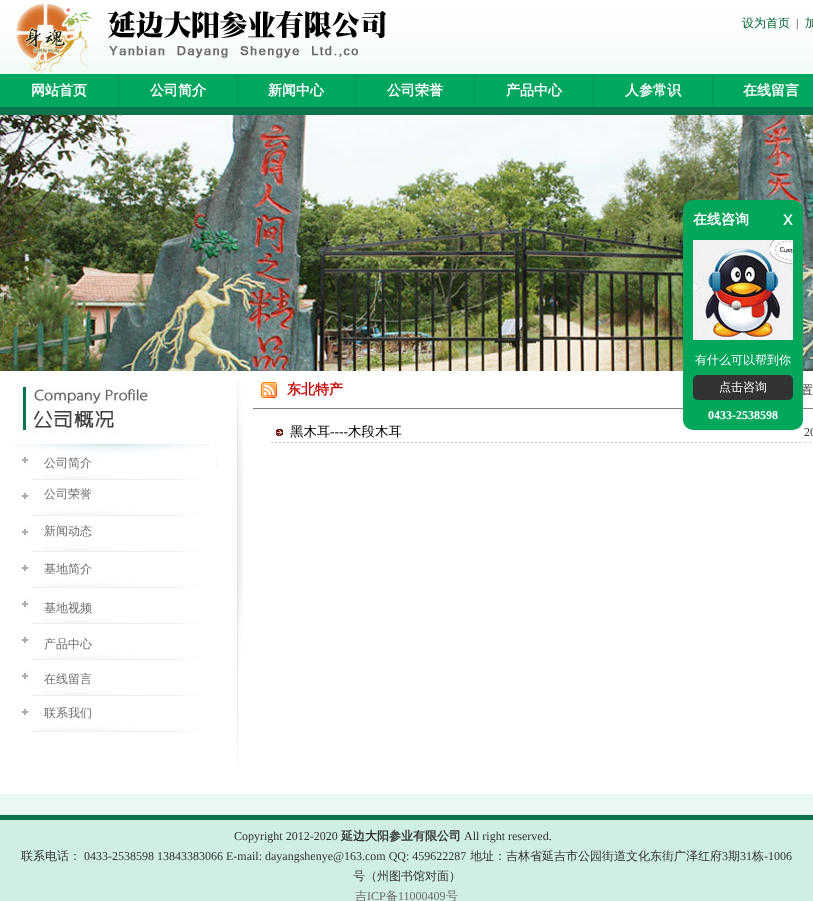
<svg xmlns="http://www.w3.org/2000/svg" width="813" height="901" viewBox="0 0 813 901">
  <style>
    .t1 { font: 500 12px WenQuanYi Zen Hei; fill: #015d2f; }
    .t2 { font: 12px Liberation Serif; fill: #333; }
    .t3 { font: bold 14px WenQuanYi Zen Hei; fill: #fff; }
    .t4 { font: 500 12px WenQuanYi Zen Hei; fill: #333; }
    .t5 { font: 20px Liberation Sans; fill: #fff; }
    .t6 { font: 500 12px WenQuanYi Zen Hei; fill: #fff; }
    .t7 { font: bold 12px Liberation Serif; fill: #fff; }
    .t8 { font: bold 14px WenQuanYi Zen Hei; fill: #ca0809; }
    .t9 { font: 500 13.5px WenQuanYi Zen Hei; fill: #000; }
    .t10 { font: 13.5px Liberation Serif; fill: #000; }
    .t11 { font: 500 12px WenQuanYi Zen Hei; fill: #6e6a6b; }
    .t12 { font: bold 12px WenQuanYi Zen Hei; fill: #333; }
    .t13 { font: 12px Liberation Serif; fill: #6e6a6b; }
  </style>
  <rect width="100%" height="100%" fill="#e9f8f3"/>
  <image x="0" y="0" width="813" height="115" href="images/1.png"/>
  <image x="6" y="3" width="380" height="71" href="images/2.png"/>
  <text x="742" y="27" class="t1">设为首页</text>
  <text x="796" y="27" class="t2">|</text>
  <text x="805" y="27" class="t1">加</text>
  <rect x="0" y="74" width="813" height="33" fill="#00a75f"/>
  <rect x="118" y="74" width="1" height="33" fill="#039556"/>
  <text x="31" y="95" class="t3">网站首页</text>
  <rect x="237" y="74" width="1" height="33" fill="#039556"/>
  <text x="150" y="95" class="t3">公司简介</text>
  <rect x="355" y="74" width="1" height="33" fill="#039556"/>
  <text x="268" y="95" class="t3">新闻中心</text>
  <rect x="474" y="74" width="1" height="33" fill="#039556"/>
  <text x="387" y="95" class="t3">公司荣誉</text>
  <rect x="593" y="74" width="1" height="33" fill="#039556"/>
  <text x="506" y="95" class="t3">产品中心</text>
  <rect x="712" y="74" width="1" height="33" fill="#039556"/>
  <text x="625" y="95" class="t3">人参常识</text>
  <text x="743" y="95" class="t3">在线留言</text>
  <image x="0" y="115" width="813" height="256" href="images/3.png"/>
  <rect x="0" y="371" width="813" height="423" fill="#fff"/>
  <rect x="253" y="408" width="560" height="1" fill="#808080"/>
  <text x="801" y="394" class="t4">置</text>
  <rect x="683" y="200" width="120" height="230" rx="10" fill="#00a65a"/>
  <text x="693" y="224" class="t3">在线咨询</text>
  <text x="783" y="225" class="t5">x</text>
  <image x="693" y="240" width="100" height="100" href="images/4.png"/>
  <text x="695" y="364" class="t6">有什么可以帮到你</text>
  <rect x="693" y="375" width="100" height="25" rx="5" fill="#333"/>
  <text x="719" y="391" class="t6">点击咨询</text>
  <text x="708" y="419" class="t7">0433-2538598</text>
  <image x="237" y="380" width="6" height="390" href="images/5.png"/>
  <image x="261" y="382" width="16" height="16" href="images/6.png"/>
  <text x="287" y="394" class="t8">东北特产</text>
  <image x="271" y="442" width="18" height="1" href="images/7.png"/>
  <image x="276" y="429" width="7" height="7" href="images/8.png"/>
  <image x="291" y="442" width="513" height="1" href="images/9.png"/>
  <text x="290" y="436" class="t9">黑木耳</text>
  <text x="330" y="436" class="t10">----</text>
  <text x="348" y="436" class="t9">木段木耳</text>
  <image x="805" y="442" width="6" height="1" href="images/10.png"/>
  <text x="804" y="436" class="t2">20</text>
  <image x="13" y="387" width="204" height="345" href="images/11.png"/>
  <text x="44" y="467" class="t11">公司简介</text>
  <text x="44" y="498" class="t11">公司荣誉</text>
  <text x="44" y="535" class="t11">新闻动态</text>
  <text x="44" y="573" class="t11">基地简介</text>
  <text x="44" y="612" class="t11">基地视频</text>
  <text x="44" y="648" class="t11">产品中心</text>
  <text x="44" y="683" class="t11">在线留言</text>
  <text x="44" y="717" class="t11">联系我们</text>
  <rect x="0" y="814" width="813" height="1" fill="#e4e4e4"/>
  <rect x="0" y="815" width="813" height="5" fill="#08754b"/>
  <rect x="0" y="820" width="813" height="81" fill="#cfefe4"/>
  <text x="234" y="840" class="t2">Copyright 2012-2020</text>
  <text x="341" y="840" class="t12">延边大阳参业有限公司</text>
  <text x="464" y="840" class="t2">All right reserved.</text>
  <text x="21" y="860" class="t4">联系电话：</text>
  <text x="84" y="860" class="t2">0433-2538598 13843383066 E-mail: dayangshenye@163.com QQ: 459622287</text>
  <text x="470" y="860" class="t4">地址：吉林省延吉市公园街道文化东街广泽红府</text>
  <text x="722" y="860" class="t2">3</text>
  <text x="728" y="860" class="t4">期</text>
  <text x="740" y="860" class="t2">31</text>
  <text x="752" y="860" class="t4">栋</text>
  <text x="764" y="860" class="t2">-1006</text>
  <text x="353" y="880" class="t4">号（州图书馆对面）</text>
  <text x="355" y="900" class="t11">吉</text>
  <text x="367" y="900" class="t13">ICP</text>
  <text x="386" y="900" class="t11">备</text>
  <text x="398" y="900" class="t13">11000409</text>
  <text x="446" y="900" class="t11">号</text>
</svg>
